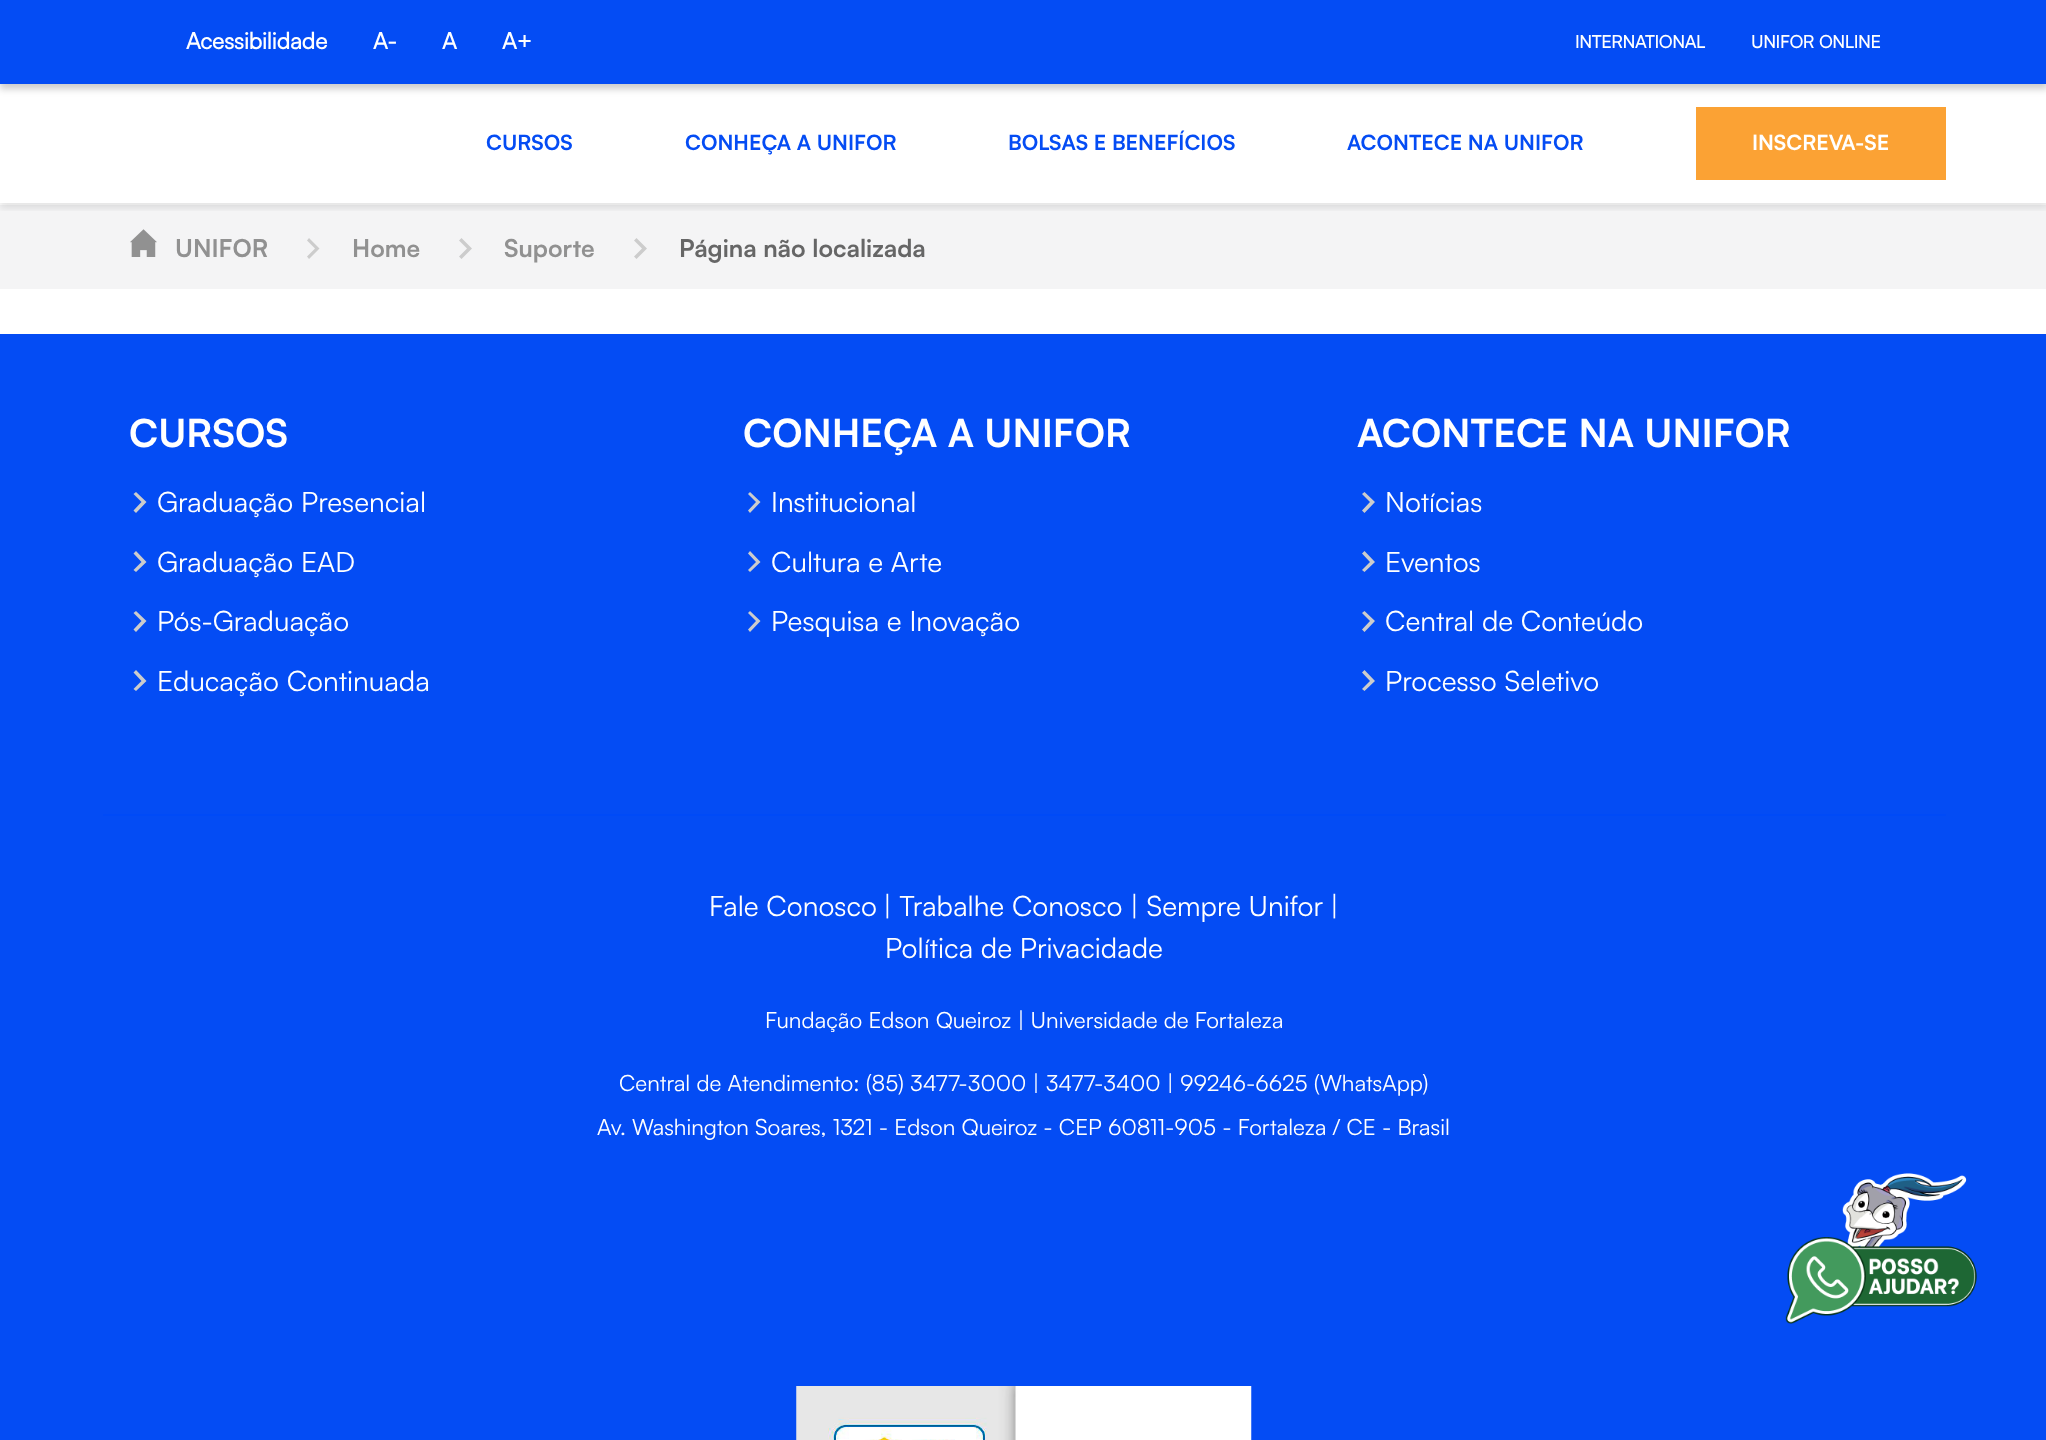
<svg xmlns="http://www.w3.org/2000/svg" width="2046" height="1440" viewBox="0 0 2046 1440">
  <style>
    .t1 { font: bold 22.75px 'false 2'; fill: #fff; }
    .t2 { font: bold 17.5px 'false 2'; fill: #fff; }
    .t3 { font: bold 21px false; fill: #044cf4; }
    .t4 { font: bold 21px false; fill: #fff; }
    .t5 { font: bold 24.5px false; fill: #919191; }
    .t6 { font: bold 24.5px false; fill: #666; }
    .t7 { font: bold 38.5px false; fill: #fff; }
    .t8 { font: 28px false; fill: #fff; }
    .t9 { font: 22.4px false; fill: #fff; }
  </style>
  <defs>
    <clipPath id="clip1"><rect x="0" y="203" width="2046" height="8"/></clipPath>
  </defs>
  <rect width="100%" height="100%" fill="#fff"/>
  <rect x="0" y="5" width="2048" height="84" fill="#00000033" filter="blur(3.5px)"/>
  <rect x="0" y="205" width="2046" height="84" fill="#f4f4f5"/>
  <g clip-path="url(#clip1)">
    <rect x="0" y="89" width="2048" height="119" fill="#0000001a" filter="blur(3.5px)"/>
  </g>
  <rect x="0" y="0" width="2046" height="84" fill="#044cf4"/>
  <text x="186" y="49" class="t1">Acessibilidade</text>
  <text x="373" y="49" class="t1">A-</text>
  <text x="442" y="49" class="t1">A</text>
  <text x="502" y="49" class="t1">A+</text>
  <text x="1575" y="48" class="t2">INTERNATIONAL</text>
  <text x="1751" y="48" class="t2">UNIFOR ONLINE</text>
  <text x="486" y="150" class="t3">CURSOS</text>
  <text x="685" y="150" class="t3">CONHEÇA A UNIFOR</text>
  <text x="1008" y="150" class="t3">BOLSAS E BENEFÍCIOS</text>
  <text x="1347" y="150" class="t3">ACONTECE NA UNIFOR</text>
  <rect x="1696" y="107" width="250" height="73" fill="#fba234"/>
  <text x="1752" y="150" class="t4">INSCREVA-SE</text>
  <image x="130" y="229" width="27" height="28" href="images/1.png"/>
  <text x="175" y="257" class="t5">UNIFOR</text>
  <path d="M309 238L307 240.5L315 248.5L307 256.5L309 259L319.5 248.5Z" fill="#ccc"/>
  <text x="352" y="257" class="t5">Home</text>
  <path d="M461.5 238L459 240.5L467 248.5L459 256.5L461.5 259L472 248.5Z" fill="#ccc"/>
  <text x="504" y="257" class="t5">Suporte</text>
  <path d="M636.5 238L634 240.5L642 248.5L634 256.5L636.5 259L647 248.5Z" fill="#ccc"/>
  <text x="679" y="257" class="t6">Página não localizada</text>
  <rect x="0" y="334" width="2046" height="1106" fill="#044cf4"/>
  <text x="129" y="447" class="t7">CURSOS</text>
  <path d="M136 492L133.5 494L141.5 502L133.5 510.5L136 513L146.5 502Z" fill="#ccc"/>
  <text x="157" y="512" class="t8">Graduação Presencial</text>
  <path d="M136 551L133.5 553.5L141.5 562L133.5 570L136 572L146.5 562Z" fill="#ccc"/>
  <text x="157" y="572" class="t8">Graduação EAD</text>
  <path d="M136 611L133.5 613L141.5 621L133.5 629.5L136 632L146.5 621Z" fill="#ccc"/>
  <text x="157" y="631" class="t8">Pós-Graduação</text>
  <path d="M136 670L133.5 672.5L141.5 681L133.5 689L136 691L146.5 681Z" fill="#ccc"/>
  <text x="157" y="691" class="t8">Educação Continuada</text>
  <text x="743" y="447" class="t7">CONHEÇA A UNIFOR</text>
  <path d="M750 492L748 494L756 502L748 510.5L750 513L760.5 502Z" fill="#ccc"/>
  <text x="771" y="512" class="t8">Institucional</text>
  <path d="M750 551L748 553.5L756 562L748 570L750 572L760.5 562Z" fill="#ccc"/>
  <text x="771" y="572" class="t8">Cultura e Arte</text>
  <path d="M750 611L748 613L756 621L748 629.5L750 632L760.5 621Z" fill="#ccc"/>
  <text x="771" y="631" class="t8">Pesquisa e Inovação</text>
  <text x="1357" y="447" class="t7">ACONTECE NA UNIFOR</text>
  <path d="M1364.5 492L1362 494L1370 502L1362 510.5L1364.5 513L1375 502Z" fill="#ccc"/>
  <text x="1385" y="512" class="t8">Notícias</text>
  <path d="M1364.5 551L1362 553.5L1370 562L1362 570L1364.5 572L1375 562Z" fill="#ccc"/>
  <text x="1385" y="572" class="t8">Eventos</text>
  <path d="M1364.5 611L1362 613L1370 621L1362 629.5L1364.5 632L1375 621Z" fill="#ccc"/>
  <text x="1385" y="631" class="t8">Central de Conteúdo</text>
  <path d="M1364.5 670L1362 672.5L1370 681L1362 689L1364.5 691L1375 681Z" fill="#ccc"/>
  <text x="1385" y="691" class="t8">Processo Seletivo</text>
  <rect x="103" y="814" width="1843" height="2" fill="#004af7"/>
  <text x="709" y="916" class="t8">Fale Conosco</text>
  <text x="883" y="916" class="t8">| Trabalhe Conosco</text>
  <text x="1130" y="916" class="t8">| Sempre Unifor</text>
  <text x="1330" y="916" class="t8">|</text>
  <text x="885" y="958" class="t8">Política de Privacidade</text>
  <text x="765" y="1028" class="t9">Fundação Edson Queiroz | Universidade de Fortaleza</text>
  <text x="619" y="1091" class="t9">Central de Atendimento: (85) 3477-3000 | 3477-3400 | 99246-6625 (WhatsApp)</text>
  <text x="597" y="1135" class="t9">Av. Washington Soares, 1321 - Edson Queiroz - CEP 60811-905 - Fortaleza / CE - Brasil</text>
  <image x="796" y="1386" width="456" height="54" href="images/2.png"/>
  <image x="1785" y="1173" width="192" height="151" href="images/3.png"/>
</svg>
